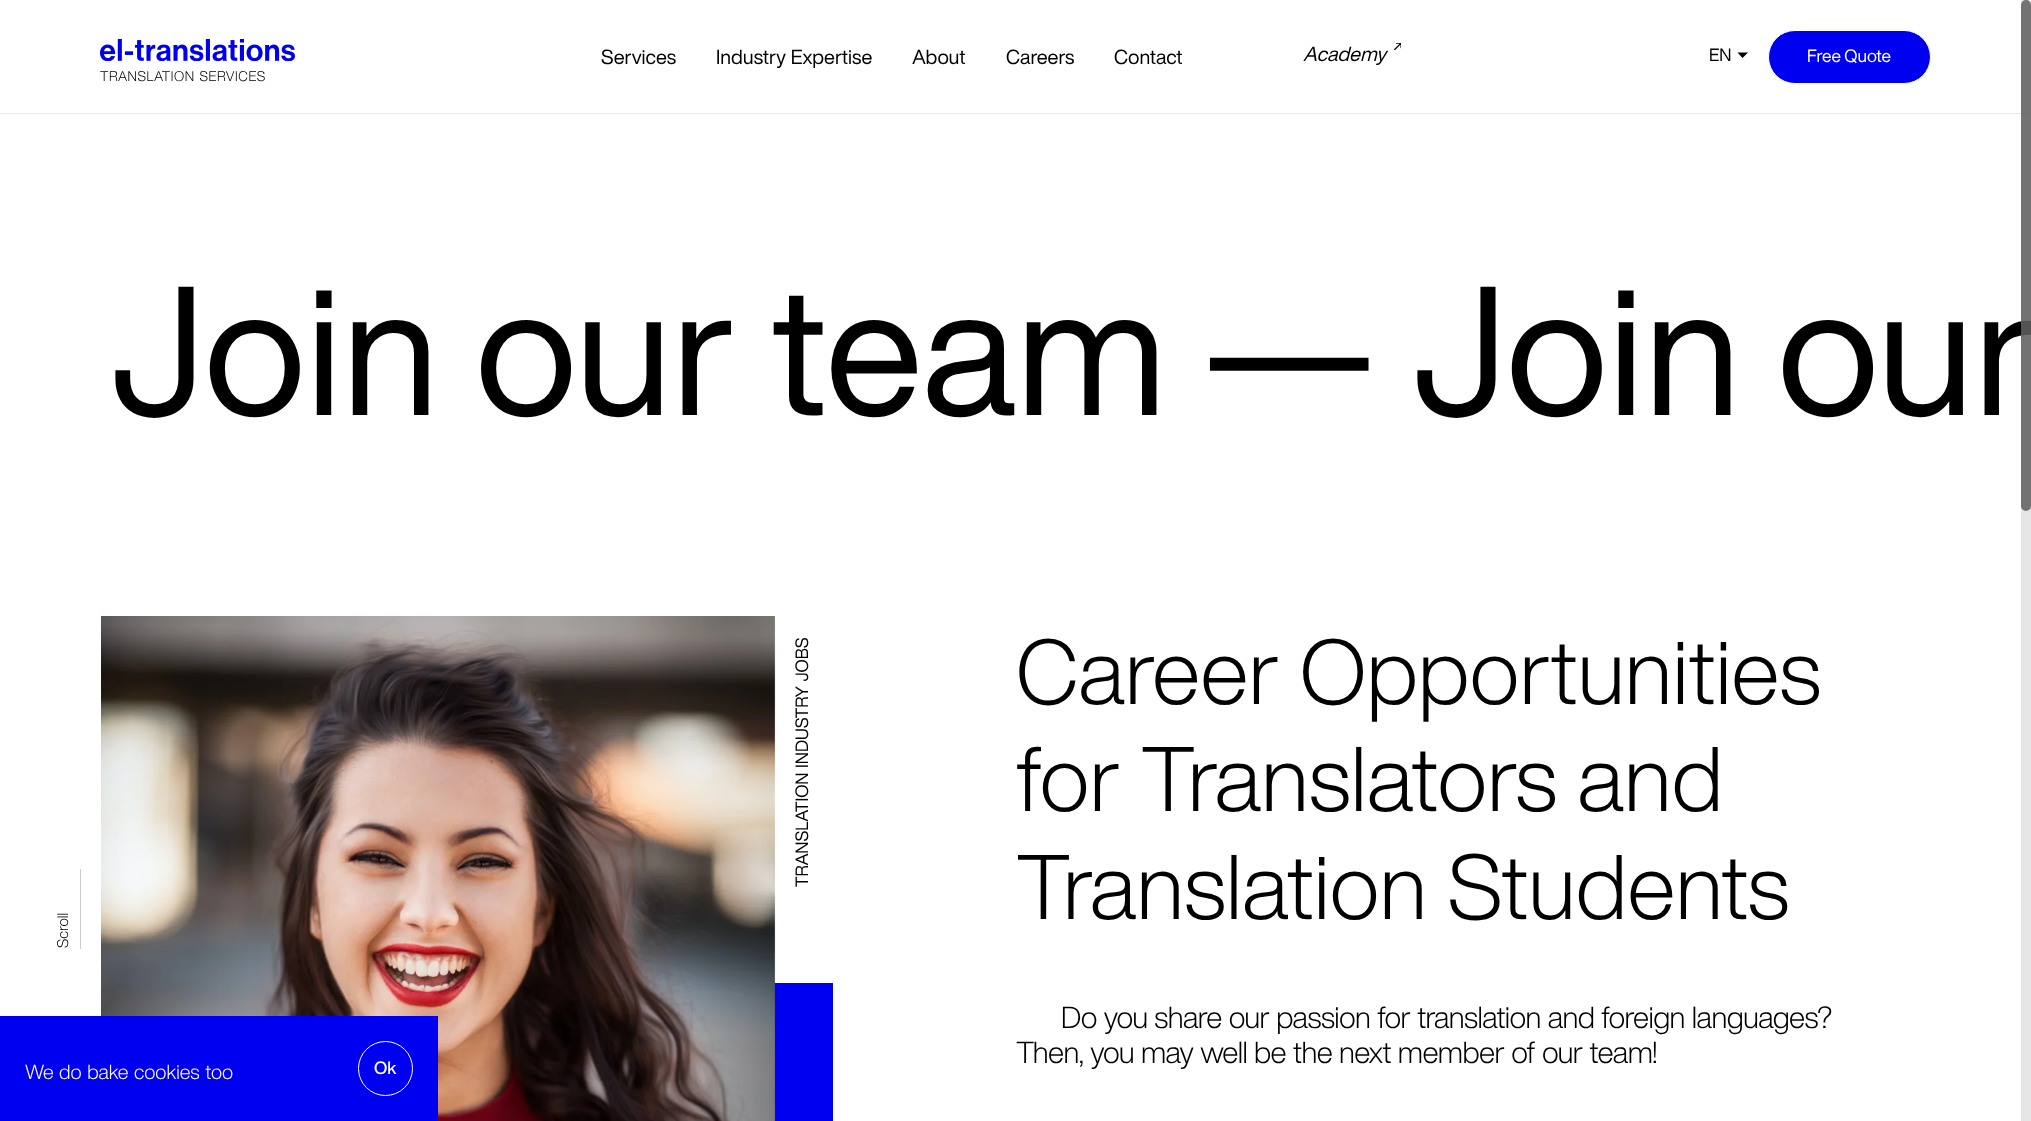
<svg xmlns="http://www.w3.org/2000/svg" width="2031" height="1121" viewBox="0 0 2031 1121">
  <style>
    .t1 { font: 180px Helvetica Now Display; fill: #000; }
    .t2 { font: 20px Helvetica Now Display; fill: #000; }
    .t3 { font: italic 20px Helvetica Now Display; fill: #000; }
    .t4 { font: 17.5px Helvetica Now Display; fill: #000; }
    .t5 { font: 17.5px Helvetica Now Display; fill: #fff; }
    .t6 { font: 300 13.75px Helvetica Now Display; letter-spacing: 0.6px; fill: #000; }
    .t7 { font: 300 15px Helvetica Now Display; fill: #000; }
    .t8 { font: 300 90px Helvetica Now Display; fill: #000; }
    .t9 { font: 300 30px Helvetica Now Display; letter-spacing: -0.62px; fill: #000; }
    .t10 { font: 300 20px Helvetica Now Display; fill: #fff; }
    .t11 { font: 500 17.5px Helvetica Now Display; fill: #fff; }
  </style>
  <rect width="100%" height="100%" fill="#fff"/>
  <rect x="0" y="113" width="2031" height="1" fill="#e7e7e7"/>
  <text x="1412" y="415" word-spacing="1.25" class="t1">Join our</text>
  <rect x="2021" y="0" width="10" height="1121" fill="#dededebf"/>
  <rect x="2021" y="0" width="10" height="511" rx="5" fill="#00000080"/>
  <text x="601" y="64" class="t2">Services</text>
  <text x="716" y="64" word-spacing="1.25" class="t2">Industry Expertise</text>
  <text x="912" y="64" class="t2">About</text>
  <text x="1006" y="64" class="t2">Careers</text>
  <text x="1114" y="64" class="t2">Contact</text>
  <text x="1303" y="61" class="t3">Academy</text>
  <image x="1394" y="43" width="7" height="7" href="images/1.png"/>
  <text x="1709" y="61" class="t4">EN</text>
  <path d="M1737.5 52.5L1742.5 58L1748 52.5Z" fill="#000"/>
  <rect x="1768.5" y="30.5" width="162" height="53" rx="26.5" fill="#0000f0" stroke="#fff"/>
  <text x="1807" y="62" class="t5">Free Quote</text>
  <image x="100" y="39" width="195" height="22" href="images/2.png"/>
  <text x="100" y="81" word-spacing="1.25" class="t6">TRANSLATION SERVICES</text>
  <text x="68" y="948" transform="rotate(-90 68 948)" class="t7">Scroll</text>
  <rect x="80" y="869" width="1" height="80" fill="#ccc"/>
  <text x="110" y="415" word-spacing="1.25" class="t1">Join our team —</text>
  <rect x="774" y="983" width="59" height="138" fill="#0000f0"/>
  <image x="101" y="616" width="675" height="505" href="images/3.png"/>
  <text x="808" y="887" transform="rotate(-90 808 887)" word-spacing="1.25" class="t4">TRANSLATION INDUSTRY JOBS</text>
  <text x="1016" y="704" word-spacing="1.25" class="t8">Career Opportunities</text>
  <text x="1016" y="811" word-spacing="1.25" class="t8">for Translators and</text>
  <text x="1016" y="919" word-spacing="1.25" class="t8">Translation Students</text>
  <text x="1061" y="1028" word-spacing="1.25" class="t9">Do you share our passion for translation and foreign languages?</text>
  <text x="1016" y="1063" word-spacing="1.25" class="t9">Then, you may well be the next member of our team!</text>
  <rect x="0" y="1016" width="438" height="105" fill="#0000f0"/>
  <text x="25" y="1079" word-spacing="1.25" class="t10">We do bake cookies too</text>
  <circle cx="385.5" cy="1068.5" r="27" fill="none" stroke="#fff"/>
  <text x="374" y="1074" class="t11">Ok</text>
</svg>
